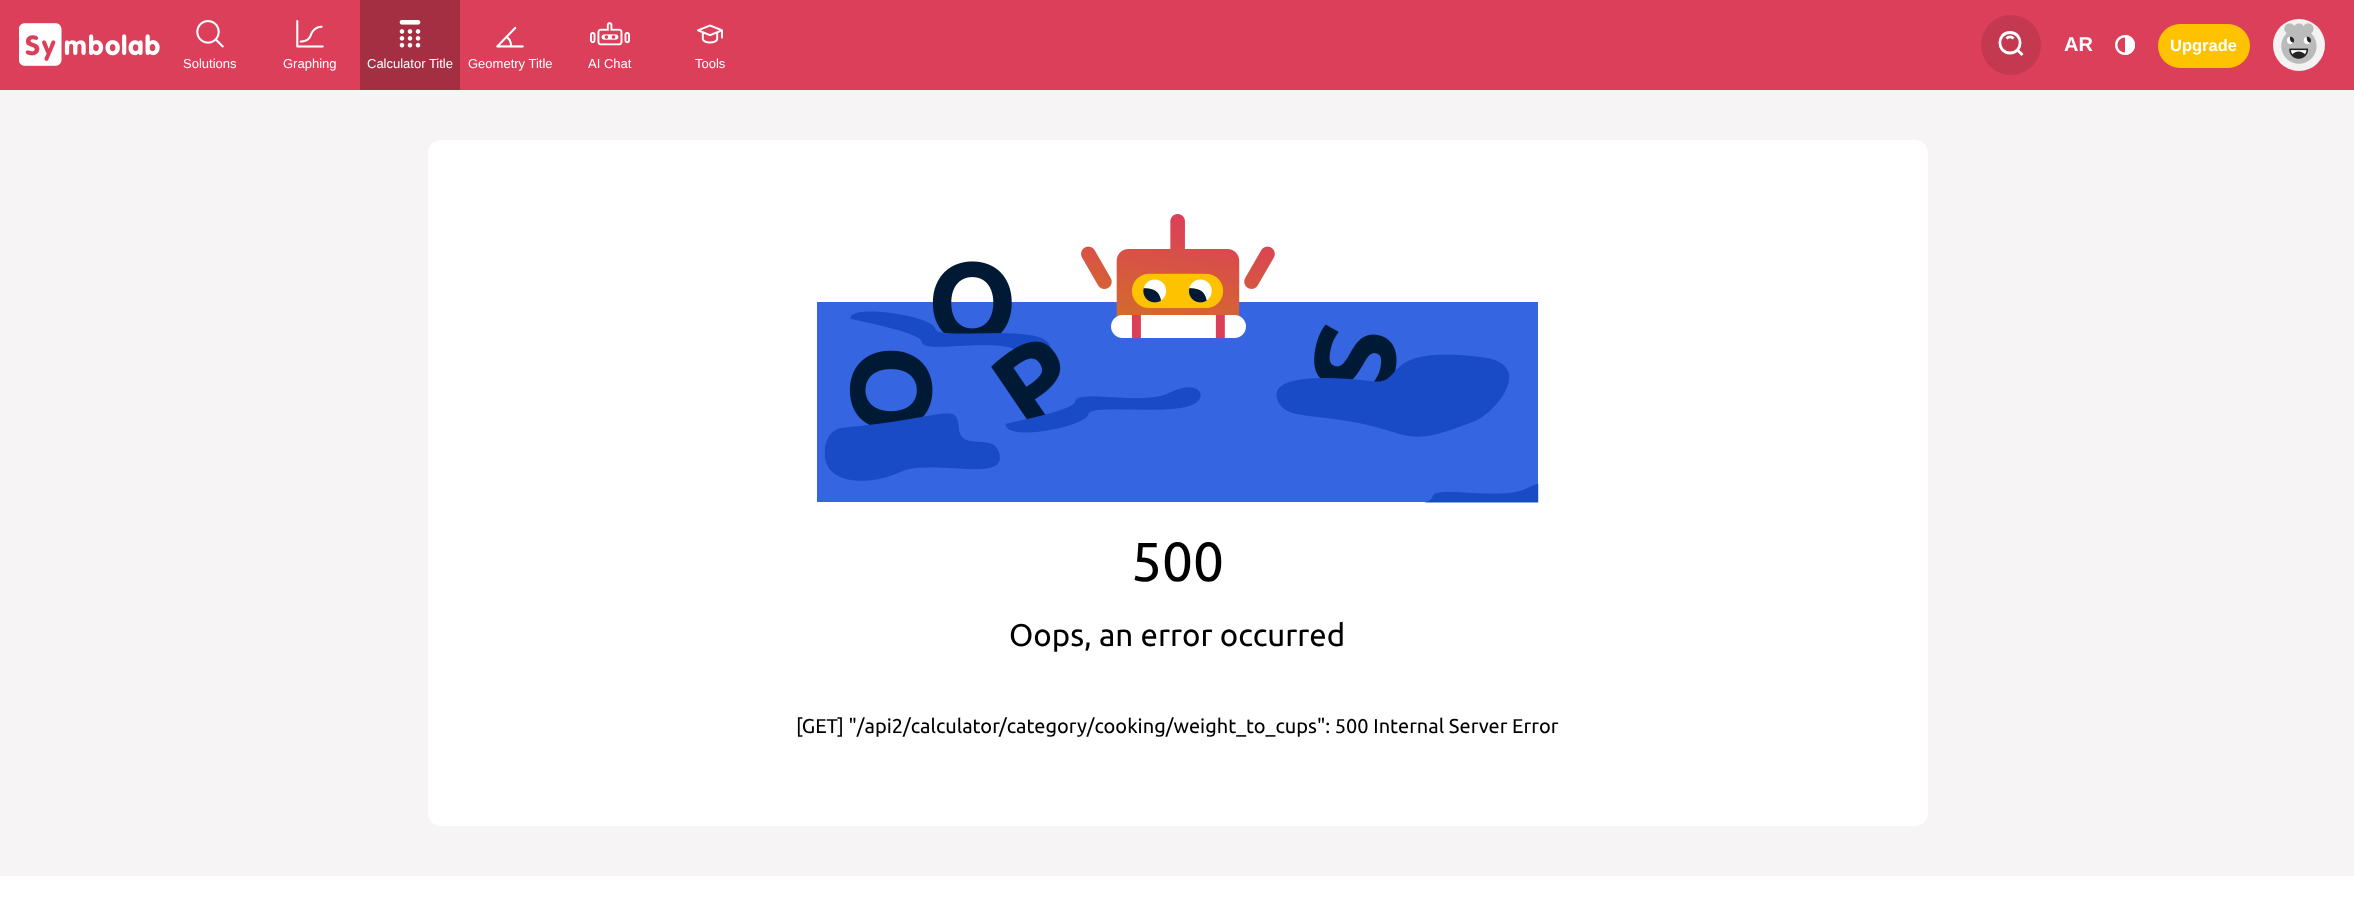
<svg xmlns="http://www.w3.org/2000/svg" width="2354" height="920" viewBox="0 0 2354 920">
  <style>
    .t1 { font: bold 20px Liberation Sans; fill: #fff; }
    .t2 { font: bold 16.5px Liberation Sans; fill: #fff; }
    .t3 { font: 13px Liberation Sans; fill: #fff; }
    .t4 { font: 55px Ubuntu; fill: #000; }
    .t5 { font: 31.25px Ubuntu; fill: #000; }
    .t6 { font: 20px Ubuntu; fill: #000; }
  </style>
  <rect width="100%" height="100%" fill="#f6f4f4"/>
  <rect x="0" y="0" width="2354" height="90" fill="#db3f59"/>
  <circle cx="2011" cy="45" r="30" fill="#c53950"/>
  <path d="M2013.5 38.5C2011.5 36.5 2008.5 36.5 2006.5 38.5M2017.5 50L2022.5 55M2010 53C2023.5 53 2023.5 32.5 2010 32.5C1996.5 32.5 1996.5 53 2010 53Z" fill="none" stroke="#fff" stroke-width="2.8"/>
  <text x="2064" y="51" class="t1">AR</text>
  <image x="2115" y="35" width="20" height="20" href="images/1.png"/>
  <rect x="2158" y="24" width="92" height="44" rx="22" fill="#ffc200"/>
  <text x="2170" y="51" class="t2">Upgrade</text>
  <circle cx="2299" cy="45" r="26" fill="#f4f3f3"/>
  <image x="2281" y="23" width="36" height="41" href="images/2.png"/>
  <image x="19" y="23" width="141" height="43" href="images/3.png"/>
  <image x="196" y="20" width="28" height="28" href="images/4.png"/>
  <text x="183" y="68" class="t3">Solutions</text>
  <image x="296" y="20" width="28" height="28" href="images/5.png"/>
  <text x="283" y="68" class="t3">Graphing</text>
  <rect x="360" y="0" width="100" height="90" fill="#a42f43"/>
  <image x="399" y="20" width="22" height="28" href="images/6.png"/>
  <text x="367" y="68" class="t3">Calculator Title</text>
  <image x="496" y="26" width="28" height="22" href="images/7.png"/>
  <text x="468" y="68" class="t3">Geometry Title</text>
  <image x="590" y="22" width="40" height="24" href="images/8.png"/>
  <text x="588" y="68" class="t3">AI Chat</text>
  <image x="697" y="24" width="26" height="20" href="images/9.png"/>
  <text x="695" y="68" class="t3">Tools</text>
  <rect x="428" y="140" width="1500" height="686" rx="13" fill="#fff"/>
  <image x="817" y="214" width="722" height="289" href="images/10.png"/>
  <text x="1131" y="581" class="t4">500</text>
  <text x="1009" y="646" class="t5">Oops, an error occurred</text>
  <text x="796" y="733" class="t6">[GET] "/api2/calculator/category/cooking/weight_to_cups": 500 Internal Server Error</text>
  <rect x="0" y="876" width="2354" height="44" fill="#fff"/>
</svg>
